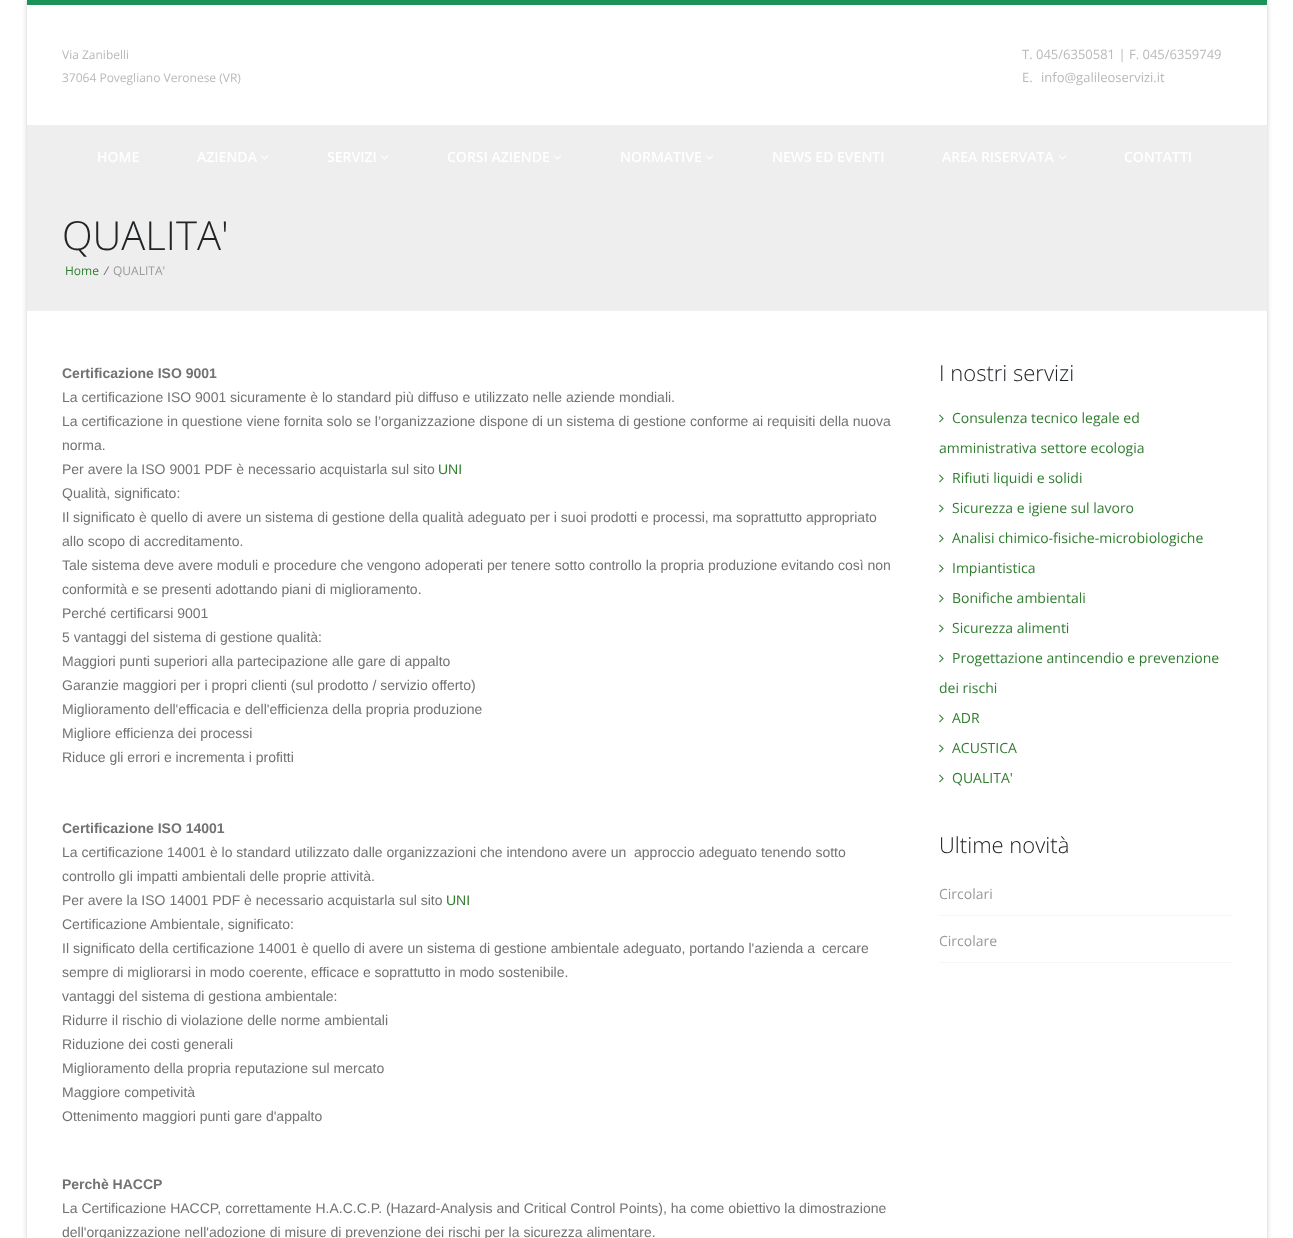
<svg xmlns="http://www.w3.org/2000/svg" width="1293" height="1238" viewBox="0 0 1293 1238">
  <style>
    .t1 { font: 12px Open Sans; fill: #b9b9b9; }
    .t2 { font: 13px Open Sans; fill: #b9b9b9; }
    .t3 { font: 600 14px Open Sans; fill: #fff; }
    .t4 { font: 300 40px Open Sans; fill: #212427; }
    .t5 { font: 12px Open Sans; fill: #317d30; }
    .t6 { font: italic 12px Open Sans; fill: #727272; }
    .t7 { font: 12px Open Sans; fill: #999; }
    .t8 { font: bold 14px Liberation Sans; fill: #727272; }
    .t9 { font: 14px Liberation Sans; fill: #727272; }
    .t10 { font: 14px Liberation Sans; fill: #317d30; }
    .t11 { font: 300 22px Open Sans; fill: #212427; }
    .t12 { font: 14px Open Sans; fill: #317d30; }
    .t13 { font: 14px Open Sans; fill: #999; }
  </style>
  <defs>
    <clipPath id="clip1"><path d="M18 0H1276V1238H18ZM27 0H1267V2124H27Z" clip-rule="evenodd"/></clipPath>
  </defs>
  <rect width="100%" height="100%" fill="#fff"/>
  <g clip-path="url(#clip1)">
    <rect x="27" y="0" width="1240" height="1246" fill="#00000033" filter="blur(2.5px)"/>
  </g>
  <rect x="27" y="0" width="1240" height="5" fill="#1b9356"/>
  <text x="62" y="59" class="t1">Via Zanibelli</text>
  <text x="62" y="82" class="t1">37064 Povegliano Veronese (VR)</text>
  <text x="1022" y="59" class="t2">T. 045/6350581 | F. 045/6359749</text>
  <text x="1022" y="82" class="t2">E.</text>
  <text x="1041" y="82" class="t2">info@galileoservizi.it</text>
  <rect x="27" y="125" width="1240" height="185" fill="#eee"/>
  <text x="97" y="162" class="t3">HOME</text>
  <text x="197" y="162" class="t3">AZIENDA</text>
  <image x="261" y="155" width="7" height="5" href="images/1.png"/>
  <text x="327" y="162" class="t3">SERVIZI</text>
  <image x="381" y="155" width="7" height="5" href="images/1.png"/>
  <text x="447" y="162" class="t3">CORSI AZIENDE</text>
  <image x="554" y="155" width="7" height="5" href="images/1.png"/>
  <text x="620" y="162" class="t3">NORMATIVE</text>
  <image x="706" y="155" width="7" height="5" href="images/1.png"/>
  <text x="772" y="162" class="t3">NEWS ED EVENTI</text>
  <text x="942" y="162" class="t3">AREA RISERVATA</text>
  <image x="1059" y="155" width="7" height="5" href="images/1.png"/>
  <text x="1124" y="162" class="t3">CONTATTI</text>
  <rect x="27" y="310" width="1240" height="1" fill="#f0f0f0"/>
  <text x="62" y="250" class="t4">QUALITA'</text>
  <text x="65" y="275" class="t5">Home</text>
  <text x="104" y="275" class="t6">/</text>
  <text x="113" y="275" class="t7">QUALITA'</text>
  <text x="62" y="378" class="t8">Certificazione ISO 9001</text>
  <text x="62" y="402" class="t9">La certificazione ISO 9001 sicuramente è lo standard più diffuso e utilizzato nelle aziende mondiali.</text>
  <text x="62" y="426" class="t9">La certificazione in questione viene fornita solo se l’organizzazione dispone di un sistema di gestione conforme ai requisiti della nuova</text>
  <text x="62" y="450" class="t9">norma.</text>
  <text x="62" y="474" class="t9">Per avere la ISO 9001 PDF è necessario acquistarla sul sito</text>
  <text x="438" y="474" class="t10">UNI</text>
  <text x="62" y="498" class="t9">Qualità, significato:</text>
  <text x="62" y="522" class="t9">Il significato è quello di avere un sistema di gestione della qualità adeguato per i suoi prodotti e processi, ma soprattutto appropriato</text>
  <text x="62" y="546" class="t9">allo scopo di accreditamento.</text>
  <text x="62" y="570" class="t9">Tale sistema deve avere moduli e procedure che vengono adoperati per tenere sotto controllo la propria produzione evitando così non</text>
  <text x="62" y="594" class="t9">conformità e se presenti adottando piani di miglioramento.</text>
  <text x="62" y="618" class="t9">Perché certificarsi 9001</text>
  <text x="62" y="642" class="t9">5 vantaggi del sistema di gestione qualità:</text>
  <text x="62" y="666" class="t9">Maggiori punti superiori alla partecipazione alle gare di appalto</text>
  <text x="62" y="690" class="t9">Garanzie maggiori per i propri clienti (sul prodotto / servizio offerto)</text>
  <text x="62" y="714" class="t9">Miglioramento dell'efficacia e dell'efficienza della propria produzione</text>
  <text x="62" y="738" class="t9">Migliore efficienza dei processi</text>
  <text x="62" y="762" class="t9">Riduce gli errori e incrementa i profitti</text>
  <text x="62" y="833" class="t8">Certificazione ISO 14001</text>
  <text x="62" y="857" class="t9" xml:space="preserve">La certificazione 14001 è lo standard utilizzato dalle organizzazioni che intendono avere un  approccio adeguato tenendo sotto</text>
  <text x="62" y="881" class="t9">controllo gli impatti ambientali delle proprie attività.</text>
  <text x="62" y="905" class="t9">Per avere la ISO 14001 PDF è necessario acquistarla sul sito</text>
  <text x="446" y="905" class="t10">UNI</text>
  <text x="62" y="929" class="t9">Certificazione Ambientale, significato:</text>
  <text x="62" y="953" class="t9">Il significato della certificazione 14001 è quello di avere un sistema di gestione ambientale adeguato, portando l'azienda a</text>
  <text x="822" y="953" class="t9">cercare</text>
  <text x="62" y="977" class="t9">sempre di migliorarsi in modo coerente, efficace e soprattutto in modo sostenibile.</text>
  <text x="62" y="1001" class="t9">vantaggi del sistema di gestiona ambientale:</text>
  <text x="62" y="1025" class="t9">Ridurre il rischio di violazione delle norme ambientali</text>
  <text x="62" y="1049" class="t9">Riduzione dei costi generali</text>
  <text x="62" y="1073" class="t9">Miglioramento della propria reputazione sul mercato</text>
  <text x="62" y="1097" class="t9">Maggiore competività</text>
  <text x="62" y="1121" class="t9">Ottenimento maggiori punti gare d'appalto</text>
  <text x="62" y="1189" class="t8">Perchè HACCP</text>
  <text x="62" y="1213" class="t9">La Certificazione HACCP, correttamente H.A.C.C.P. (Hazard-Analysis and Critical Control Points), ha come obiettivo la dimostrazione</text>
  <text x="62" y="1237" class="t9">dell'organizzazione nell'adozione di misure di prevenzione dei rischi per la sicurezza alimentare.</text>
  <text x="939" y="381" class="t11">I nostri servizi</text>
  <image x="939" y="414" width="5" height="9" href="images/2.png"/>
  <text x="952" y="423" class="t12">Consulenza tecnico legale ed</text>
  <text x="939" y="453" class="t12">amministrativa settore ecologia</text>
  <image x="939" y="474" width="5" height="9" href="images/2.png"/>
  <text x="952" y="483" class="t12">Rifiuti liquidi e solidi</text>
  <image x="939" y="504" width="5" height="9" href="images/2.png"/>
  <text x="952" y="513" class="t12">Sicurezza e igiene sul lavoro</text>
  <image x="939" y="534" width="5" height="9" href="images/2.png"/>
  <text x="952" y="543" class="t12">Analisi chimico-fisiche-microbiologiche</text>
  <image x="939" y="564" width="5" height="9" href="images/2.png"/>
  <text x="952" y="573" class="t12">Impiantistica</text>
  <image x="939" y="594" width="5" height="9" href="images/2.png"/>
  <text x="952" y="603" class="t12">Bonifiche ambientali</text>
  <image x="939" y="624" width="5" height="9" href="images/2.png"/>
  <text x="952" y="633" class="t12">Sicurezza alimenti</text>
  <image x="939" y="654" width="5" height="9" href="images/2.png"/>
  <text x="952" y="663" class="t12">Progettazione antincendio e prevenzione</text>
  <text x="939" y="693" class="t12">dei rischi</text>
  <image x="939" y="714" width="5" height="9" href="images/2.png"/>
  <text x="952" y="723" class="t12">ADR</text>
  <image x="939" y="744" width="5" height="9" href="images/2.png"/>
  <text x="952" y="753" class="t12">ACUSTICA</text>
  <image x="939" y="774" width="5" height="9" href="images/2.png"/>
  <text x="952" y="783" class="t12">QUALITA'</text>
  <text x="939" y="853" class="t11">Ultime novità</text>
  <rect x="939" y="915" width="293" height="1" fill="#f5f6f6"/>
  <text x="939" y="899" class="t13">Circolari</text>
  <rect x="939" y="962" width="293" height="1" fill="#f5f6f6"/>
  <text x="939" y="946" class="t13">Circolare</text>
</svg>
